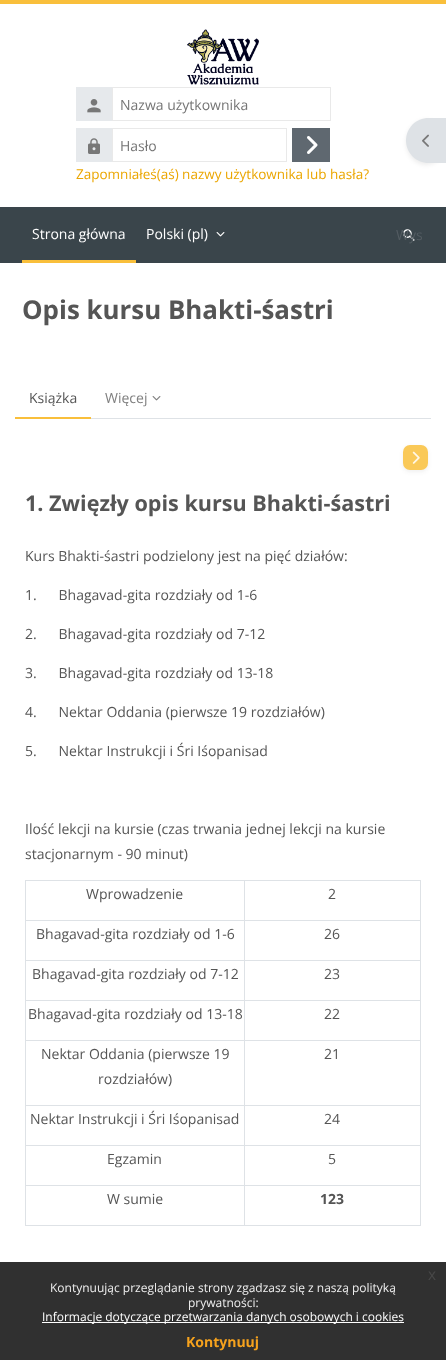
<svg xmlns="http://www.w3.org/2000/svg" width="446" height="1360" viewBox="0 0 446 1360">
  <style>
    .t1 { font: 14px Open Sans; fill: #757575; }
    .t2 { font: 13.5px Open Sans; fill: #eba600; }
    .t3 { font: 14px Open Sans; fill: #fff; }
    .t4 { font: 14px Open Sans; fill: #535c62; }
    .t5 { font: bold 25.9px Open Sans; fill: #555; }
    .t6 { font: 14px Open Sans; fill: #555; }
    .t7 { font: 14px Open Sans; fill: #808080; }
    .t8 { font: bold 21.6px Open Sans; fill: #555; }
    .t9 { font: bold 14px Open Sans; fill: #555; }
    .t10 { font: 16px Liberation Sans; fill: #474747; }
    .t11 { font: 12px Open Sans; fill: #efefef; }
    .t12 { font: 12px Open Sans; fill: #fff; }
    .t13 { font: bold 14px Open Sans; fill: #f6a21d; }
  </style>
  <rect width="100%" height="100%" fill="#fff"/>
  <rect x="0" y="0" width="446" height="4" fill="#f9bf3b"/>
  <image x="187" y="29" width="72" height="56" href="images/1.png"/>
  <rect x="76" y="87" width="36" height="34" fill="#e6e9ec"/>
  <image x="87" y="99" width="14" height="14" href="images/2.png"/>
  <rect x="112.5" y="87.5" width="218" height="33" fill="none" stroke="#e9e9e9"/>
  <text x="120" y="110" class="t1">Nazwa użytkownika</text>
  <rect x="76" y="128" width="36" height="34" fill="#e6e9ec"/>
  <image x="88" y="138" width="12" height="16" href="images/3.png"/>
  <rect x="112.5" y="128.5" width="174" height="33" fill="none" stroke="#e9e9e9"/>
  <text x="120" y="151" class="t1">Hasło</text>
  <rect x="292" y="128" width="38" height="34" fill="#5f6870"/>
  <image x="307" y="136" width="11" height="18" href="images/4.png"/>
  <text x="76" y="179" class="t2">Zapomniałeś(aś) nazwy użytkownika lub hasła?</text>
  <rect x="406" y="120" width="40" height="45" rx="23" fill="#00000012" filter="blur(2px)"/>
  <path d="M428.5 118H446V163H428.5C416 163 406 153 406 140.5C406 128 416 118 428.5 118Z" fill="#dee2e6"/>
  <image x="422" y="134" width="7" height="13" href="images/5.png"/>
  <rect x="0" y="207" width="446" height="56" fill="#3a454b"/>
  <rect x="22" y="260" width="114" height="3" fill="#f9bf3b"/>
  <text x="32" y="239" class="t3">Strona główna</text>
  <text x="146" y="239" class="t3">Polski (pl)</text>
  <image x="216" y="232" width="9" height="5" href="images/6.png"/>
  <image x="403" y="229" width="12" height="12" href="images/7.png"/>
  <text x="396" y="240" class="t4">Wys</text>
  <text x="22" y="319" class="t5">Opis kursu Bhakti-śastri</text>
  <rect x="15" y="417" width="76" height="2" fill="#f9bf3b"/>
  <text x="29" y="403" class="t6">Książka</text>
  <text x="105" y="403" class="t7">Więcej</text>
  <image x="152" y="396" width="9" height="5" href="images/8.png"/>
  <rect x="91" y="418" width="340" height="1" fill="#dee2e6"/>
  <rect x="403" y="447" width="25" height="25" rx="7" fill="#26262612" filter="blur(2px)"/>
  <rect x="403" y="445" width="25" height="25" rx="7" fill="#fac958"/>
  <image x="412" y="451" width="8" height="13" href="images/9.png"/>
  <text x="25" y="511" class="t8">1. Zwięzły opis kursu Bhakti-śastri</text>
  <text x="25" y="561" class="t6">Kurs Bhakti-śastri podzielony jest na pięć działów:</text>
  <text x="25" y="600" class="t6" xml:space="preserve">1.      Bhagavad-gita rozdziały od 1-6</text>
  <text x="25" y="639" class="t6" xml:space="preserve">2.      Bhagavad-gita rozdziały od 7-12</text>
  <text x="25" y="678" class="t6" xml:space="preserve">3.      Bhagavad-gita rozdziały od 13-18</text>
  <text x="25" y="717" class="t6" xml:space="preserve">4.      Nektar Oddania (pierwsze 19 rozdziałów)</text>
  <text x="25" y="756" class="t6" xml:space="preserve">5.      Nektar Instrukcji i Śri Iśopanisad</text>
  <text x="25" y="834" class="t6">Ilość lekcji na kursie (czas trwania jednej lekcji na kursie</text>
  <text x="25" y="859" class="t6">stacjonarnym - 90 minut)</text>
  <rect x="25" y="880" width="396" height="1" fill="#dee2e6"/>
  <rect x="420" y="880" width="1" height="346" fill="#dee2e6"/>
  <rect x="25" y="1225" width="396" height="1" fill="#dee2e6"/>
  <rect x="25" y="880" width="1" height="346" fill="#dee2e6"/>
  <text x="86" y="899" class="t6">Wprowadzenie</text>
  <text x="328" y="899" class="t6">2</text>
  <rect x="25" y="920" width="396" height="1" fill="#dee2e6"/>
  <text x="36" y="939" class="t6">Bhagavad-gita rozdziały od 1-6</text>
  <text x="324" y="939" class="t6">26</text>
  <rect x="25" y="960" width="396" height="1" fill="#dee2e6"/>
  <text x="32" y="979" class="t6">Bhagavad-gita rozdziały od 7-12</text>
  <text x="324" y="979" class="t6">23</text>
  <rect x="25" y="1000" width="396" height="1" fill="#dee2e6"/>
  <text x="28" y="1019" class="t6">Bhagavad-gita rozdziały od 13-18</text>
  <text x="324" y="1019" class="t6">22</text>
  <rect x="25" y="1040" width="396" height="1" fill="#dee2e6"/>
  <text x="41" y="1059" class="t6">Nektar Oddania (pierwsze 19</text>
  <text x="98" y="1084" class="t6">rozdziałów)</text>
  <text x="324" y="1059" class="t6">21</text>
  <rect x="25" y="1105" width="396" height="1" fill="#dee2e6"/>
  <text x="30" y="1124" class="t6">Nektar Instrukcji i Śri Iśopanisad</text>
  <text x="324" y="1124" class="t6">24</text>
  <rect x="25" y="1145" width="396" height="1" fill="#dee2e6"/>
  <text x="107" y="1164" class="t6">Egzamin</text>
  <text x="328" y="1164" class="t6">5</text>
  <rect x="25" y="1185" width="396" height="1" fill="#dee2e6"/>
  <text x="107" y="1204" class="t6">W sumie</text>
  <rect x="244" y="880" width="1" height="346" fill="#dee2e6"/>
  <text x="320" y="1204" class="t9">123</text>
  <rect x="0" y="1262" width="446" height="98" fill="#303030"/>
  <text x="428" y="1280" class="t10">x</text>
  <text x="50" y="1292" class="t11">Kontynuując przeglądanie strony zgadzasz się z naszą polityką</text>
  <text x="188" y="1307" class="t11">prywatności:</text>
  <rect x="42" y="1322" width="362" height="1" fill="#fff"/>
  <text x="42" y="1321" class="t12">Informacje dotyczące przetwarzania danych osobowych i cookies</text>
  <text x="186" y="1347" class="t13">Kontynuuj</text>
</svg>
